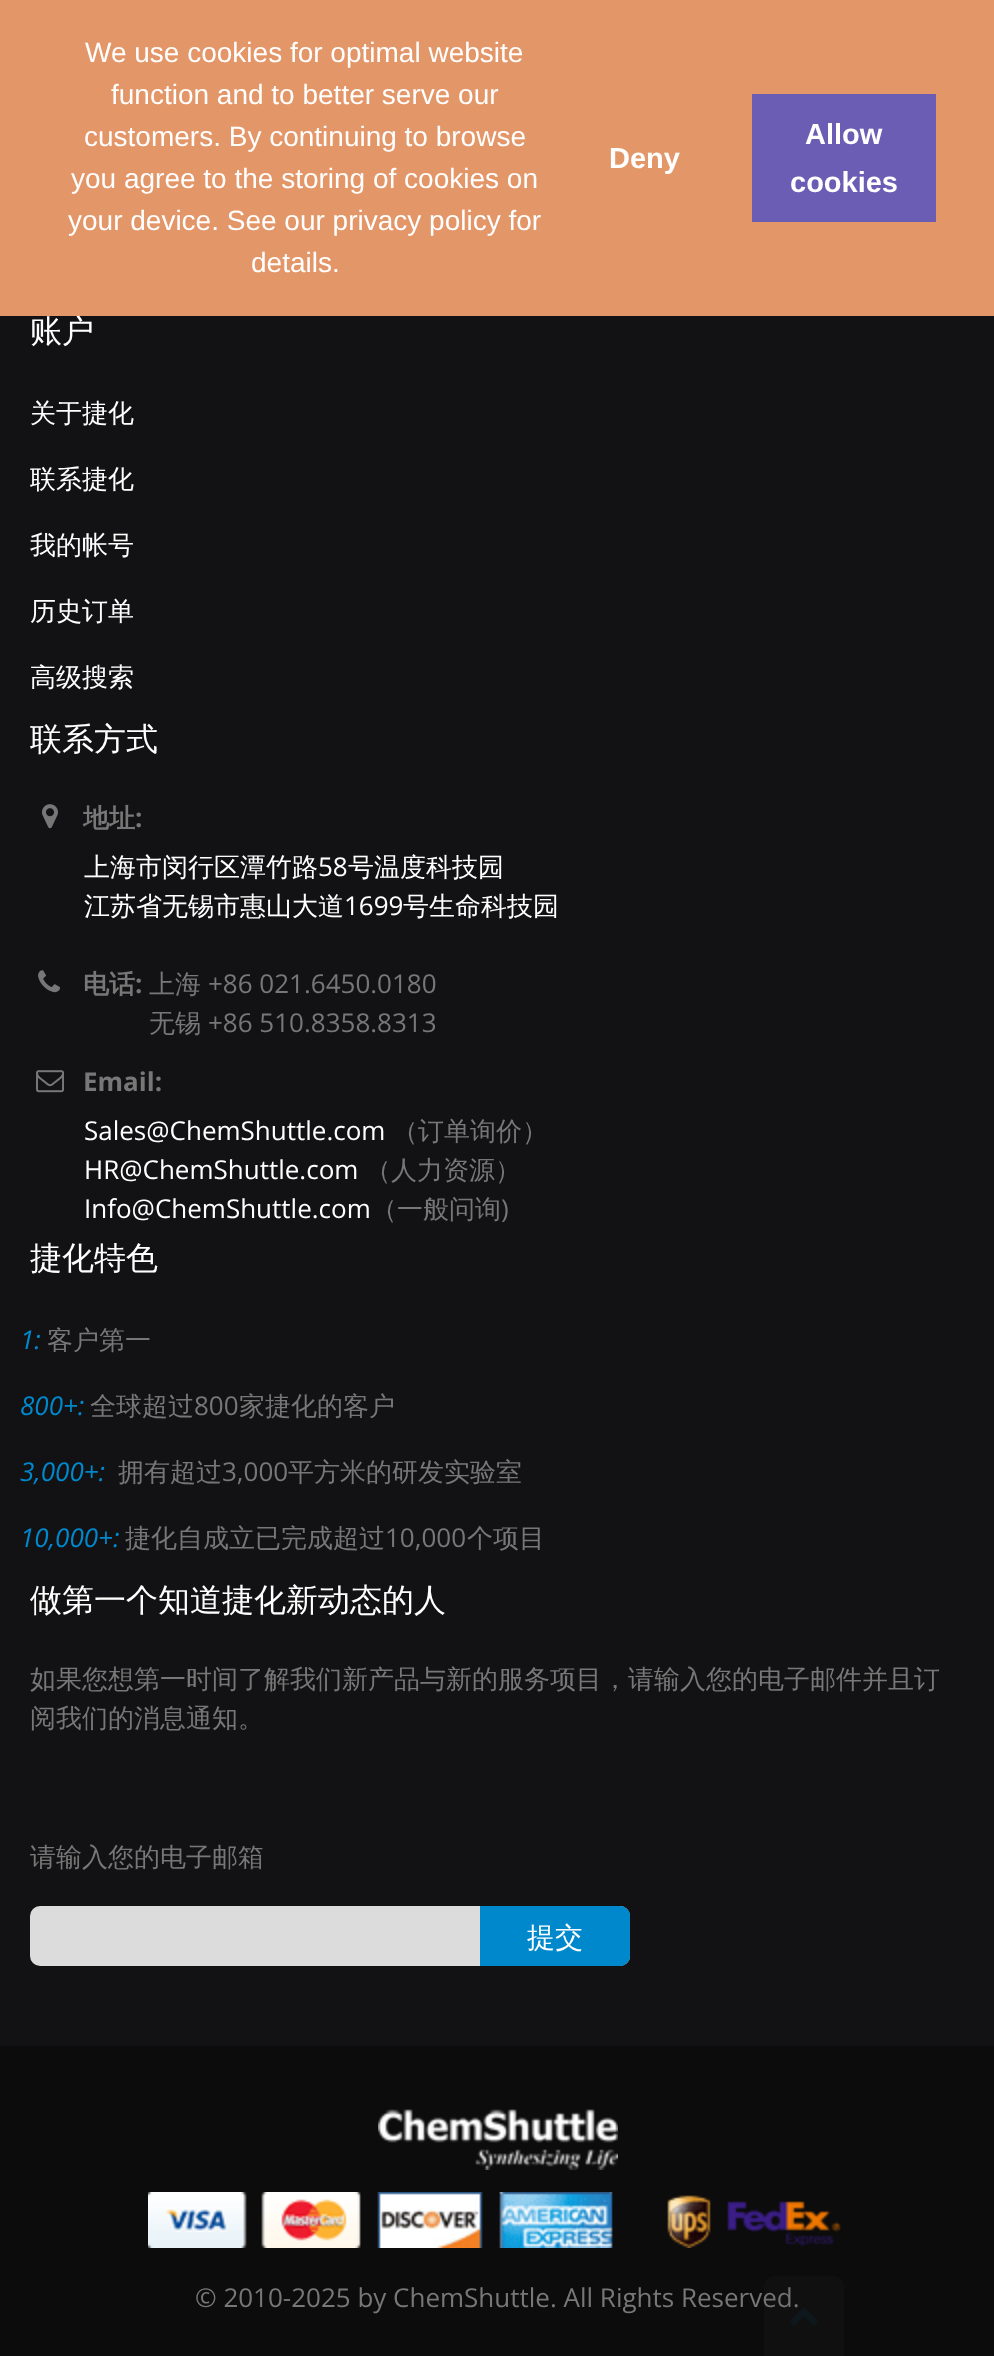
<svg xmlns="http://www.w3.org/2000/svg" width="994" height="2356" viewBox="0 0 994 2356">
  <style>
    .t1 { font: 500 32px WenQuanYi Zen Hei; fill: #fff; }
    .t2 { font: 28px Liberation Sans; fill: #fff; }
    .t3 { font: bold 29px Liberation Sans; fill: #fff; }
    .t4 { font: 500 26px WenQuanYi Zen Hei; fill: #fff; }
    .t5 { font: bold 26px WenQuanYi Zen Hei; fill: #777; }
    .t6 { font: bold 26px Open Sans; fill: #777; }
    .t7 { font: 26px Open Sans; fill: #fff; }
    .t8 { font: 500 26px WenQuanYi Zen Hei; fill: #777; }
    .t9 { font: 26px Open Sans; fill: #777; }
    .t10 { font: italic 26px Open Sans; fill: #08c; }
    .t11 { font: 500 28px WenQuanYi Zen Hei; fill: #fff; }
  </style>
  <rect width="100%" height="100%" fill="#121214"/>
  <text x="30" y="342" class="t1">账户</text>
  <rect x="0" y="0" width="994" height="316" fill="#e39668"/>
  <text x="85" y="62" class="t2">We use cookies for optimal website</text>
  <text x="111" y="104" class="t2">function and to better serve our</text>
  <text x="84" y="146" class="t2">customers. By continuing to browse</text>
  <text x="71" y="188" class="t2">you agree to the storing of cookies on</text>
  <text x="68" y="230" class="t2">your device. See our privacy policy for</text>
  <text x="251" y="272" class="t2">details.</text>
  <text x="609" y="168" class="t3">Deny</text>
  <rect x="752" y="94" width="184" height="128" fill="#6b5db3"/>
  <text x="805" y="144" class="t3">Allow</text>
  <text x="790" y="192" class="t3">cookies</text>
  <text x="30" y="422" class="t4">关于捷化</text>
  <text x="30" y="488" class="t4">联系捷化</text>
  <text x="30" y="554" class="t4">我的帐号</text>
  <text x="30" y="620" class="t4">历史订单</text>
  <text x="30" y="686" class="t4">高级搜索</text>
  <text x="30" y="750" class="t1">联系方式</text>
  <image x="42" y="804" width="16" height="25" href="images/1.png"/>
  <text x="83" y="827" class="t5">地址</text>
  <text x="135" y="827" class="t6">:</text>
  <text x="84" y="876" class="t4">上海市闵行区潭竹路</text>
  <text x="318" y="876" class="t7">58</text>
  <text x="348" y="876" class="t4">号温度科技园</text>
  <text x="84" y="915" class="t4">江苏省无锡市惠山大道</text>
  <text x="344" y="915" class="t7">1699</text>
  <text x="403" y="915" class="t4">号生命科技园</text>
  <image x="38" y="970" width="22" height="23" href="images/2.png"/>
  <text x="83" y="993" class="t5">电话</text>
  <text x="135" y="993" class="t6">:</text>
  <text x="149" y="993" class="t8">上海</text>
  <text x="208" y="993" class="t9">+86 021.6450.0180</text>
  <text x="149" y="1032" class="t8">无锡</text>
  <text x="208" y="1032" class="t9">+86 510.8358.8313</text>
  <image x="36" y="1070" width="28" height="23" href="images/3.png"/>
  <text x="83" y="1091" class="t6">Email:</text>
  <text x="84" y="1140" class="t7">Sales@ChemShuttle.com</text>
  <text x="392" y="1140" class="t8">（订单询价）</text>
  <text x="84" y="1179" class="t7">HR@ChemShuttle.com</text>
  <text x="365" y="1179" class="t8">（人力资源）</text>
  <text x="84" y="1218" class="t7">Info@ChemShuttle.com</text>
  <text x="371" y="1218" class="t8">（一般问询</text>
  <text x="501" y="1218" class="t9">)</text>
  <text x="30" y="1269" class="t1">捷化特色</text>
  <text x="20" y="1349" class="t10">1:</text>
  <text x="47" y="1349" class="t8">客户第一</text>
  <text x="20" y="1415" class="t10">800+:</text>
  <text x="90" y="1415" class="t8">全球超过</text>
  <text x="194" y="1415" class="t9">800</text>
  <text x="239" y="1415" class="t8">家捷化的客户</text>
  <text x="20" y="1481" class="t10">3,000+:</text>
  <text x="118" y="1481" class="t8">拥有超过</text>
  <text x="222" y="1481" class="t9">3,000</text>
  <text x="288" y="1481" class="t8">平方米的研发实验室</text>
  <text x="20" y="1547" class="t10">10,000+:</text>
  <text x="125" y="1547" class="t8">捷化自成立已完成超过</text>
  <text x="385" y="1547" class="t9">10,000</text>
  <text x="467" y="1547" class="t8">个项目</text>
  <text x="30" y="1611" class="t1">做第一个知道捷化新动态的人</text>
  <text x="30" y="1688" class="t8">如果您想第一时间了解我们新产品与新的服务项目，请输入您的电子邮件并且订</text>
  <text x="30" y="1727" class="t8">阅我们的消息通知。</text>
  <text x="30" y="1866" class="t8">请输入您的电子邮箱</text>
  <rect x="30" y="1906" width="600" height="60" rx="10" fill="#dcdcdc"/>
  <path d="M480 1906H620C625.5 1906 630 1910.5 630 1916V1956C630 1961.5 625.5 1966 620 1966H480Z" fill="#08c"/>
  <text x="527" y="1947" class="t11">提交</text>
  <rect x="0" y="2046" width="994" height="310" fill="#0c0c0c"/>
  <image x="378" y="2109" width="240" height="61" href="images/4.png"/>
  <image x="148" y="2192" width="693" height="56" href="images/5.png"/>
  <text x="195" y="2307" class="t9">© 2010-2025 by ChemShuttle. All Rights Reserved.</text>
  <path d="M774 2276H834C839.5 2276 844 2280.5 844 2286V2356H764V2286C764 2280.5 768.5 2276 774 2276Z" fill="#40404012"/>
  <image x="790" y="2307" width="28" height="19" href="images/6.png"/>
</svg>
